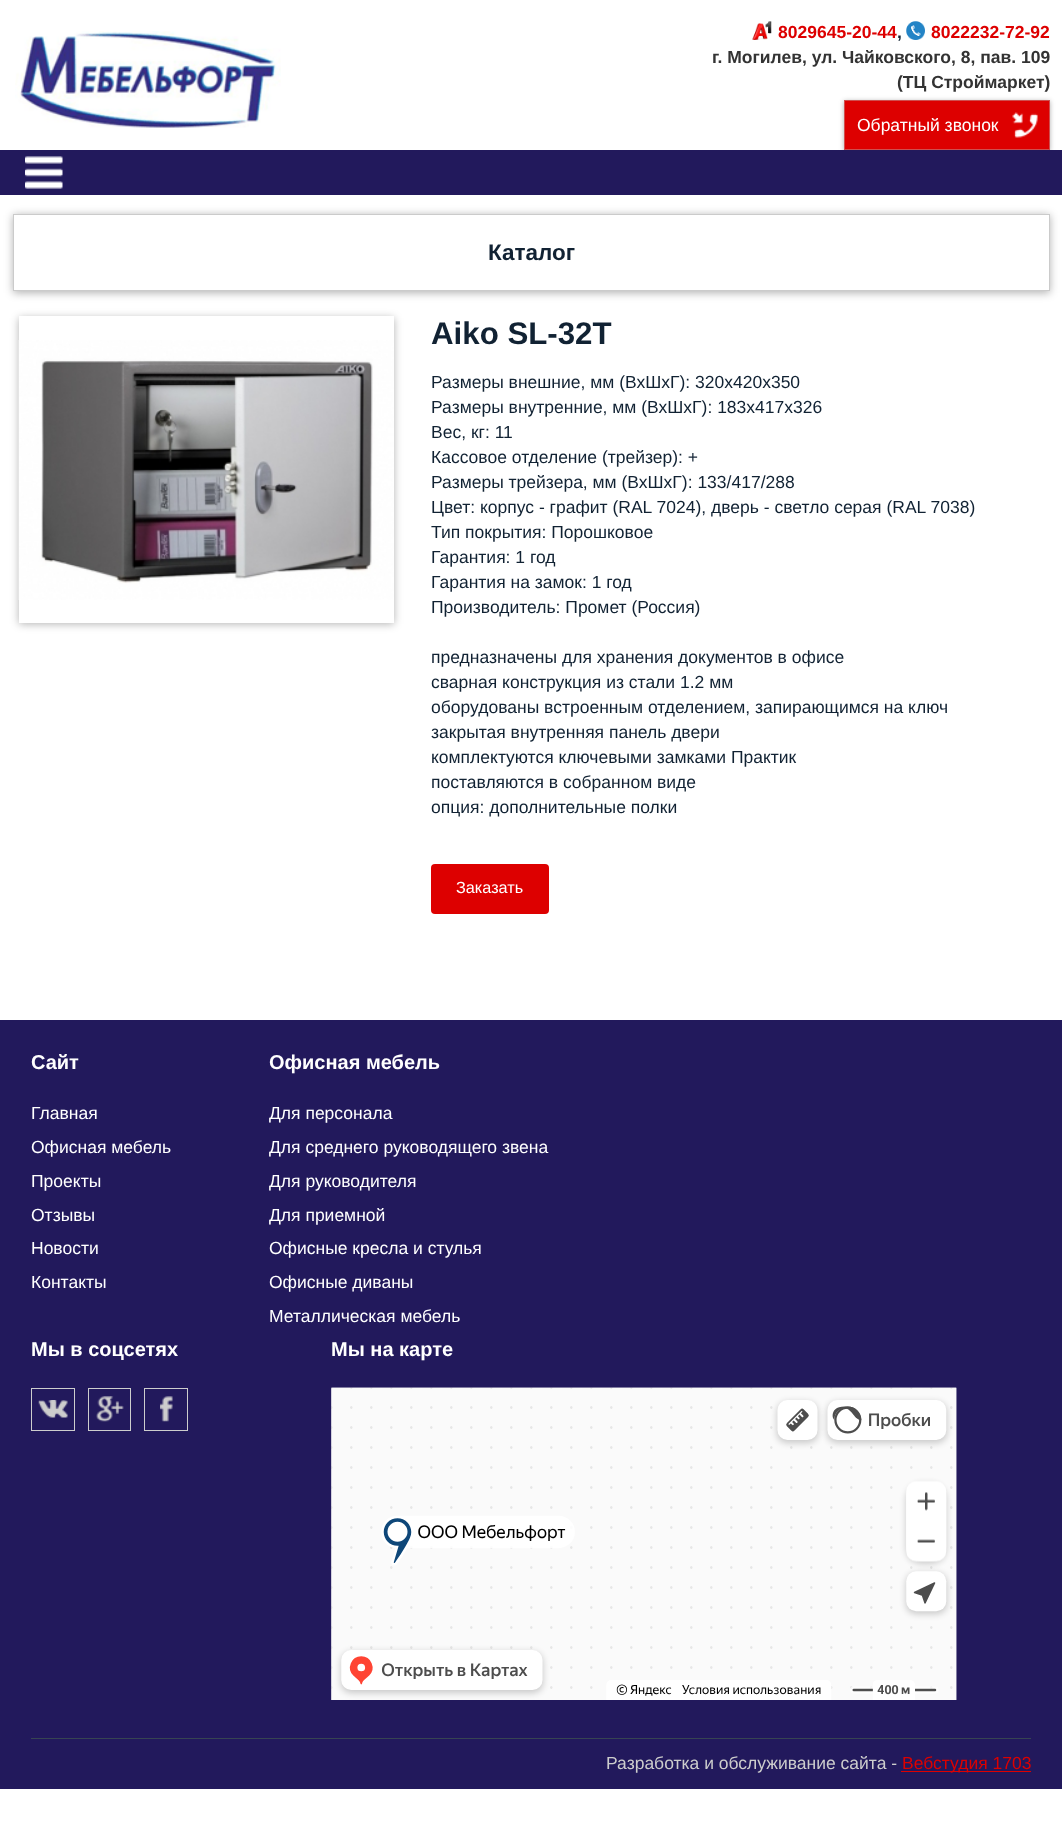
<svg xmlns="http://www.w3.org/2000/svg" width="1062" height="1842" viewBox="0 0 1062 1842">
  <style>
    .t1 { font: bold 17.5px Liberation Sans; fill: #d00; }
    .t2 { font: bold 17.5px Liberation Sans; fill: #123; }
    .t3 { font: bold 17.5px Liberation Sans; fill: #333; }
    .t4 { font: 17.5px Liberation Sans; fill: #fff; }
    .t5 { font: bold 22.5px Liberation Sans; fill: #123; }
    .t6 { font: bold 31.25px Liberation Sans; fill: #123; }
    .t7 { font: 17.5px Liberation Sans; fill: #123; }
    .t8 { font: 16.25px Liberation Sans; fill: #fff; }
    .t9 { font: bold 20px Liberation Sans; fill: #fff; }
    .t10 { font: 17.5px Liberation Sans; fill: #cdcdcd; }
    .t11 { font: 17.5px Liberation Sans; fill: #d00; }
  </style>
  <defs>
    <clipPath id="clip1"><path d="M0 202H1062V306H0ZM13 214H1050V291H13Z" clip-rule="evenodd"/></clipPath>
    <clipPath id="clip2"><path d="M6 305H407V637H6ZM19 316H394V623H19Z" clip-rule="evenodd"/></clipPath>
  </defs>
  <rect width="100%" height="100%" fill="#fff"/>
  <image x="15" y="31" width="266" height="97" href="images/1.png"/>
  <image x="752" y="21" width="20" height="19" href="images/2.png"/>
  <text x="778" y="38" class="t1">8029645-20-44</text>
  <text x="897" y="38" class="t2">,</text>
  <image x="906" y="21" width="19" height="19" href="images/3.png"/>
  <text x="931" y="38" class="t1">8022232-72-92</text>
  <text x="712" y="63" class="t3">г. Могилев, ул. Чайковского, 8, пав. 109</text>
  <text x="897" y="88" class="t3">(ТЦ Строймаркет)</text>
  <rect x="844" y="101" width="206" height="50" fill="#0000004d" filter="blur(2.5px)"/>
  <rect x="844.5" y="100.5" width="205" height="49" fill="#d00" stroke="#cf4f4f"/>
  <text x="857" y="131" class="t4">Обратный звонок</text>
  <image x="1012" y="112" width="26" height="26" href="images/4.png"/>
  <rect x="0" y="150" width="1062" height="45" fill="#22195c"/>
  <image x="25" y="156" width="38" height="33" href="images/5.png"/>
  <g clip-path="url(#clip1)">
    <rect x="13" y="215" width="1037" height="78" fill="#0000004d" filter="blur(4px)"/>
  </g>
  <rect x="13.5" y="214.5" width="1036" height="76" fill="none" stroke="#cbcbcb"/>
  <text x="488" y="260" class="t5">Каталог</text>
  <g clip-path="url(#clip2)">
    <rect x="19" y="318" width="375" height="306" fill="#0000004d" filter="blur(4px)"/>
  </g>
  <image x="18" y="340" width="376" height="260" href="images/6.png"/>
  <text x="431" y="344" class="t6">Aiko SL-32T</text>
  <text x="431" y="388" class="t7">Размеры внешние, мм (ВхШхГ): 320x420x350</text>
  <text x="431" y="413" class="t7">Размеры внутренние, мм (ВхШхГ): 183x417x326</text>
  <text x="431" y="438" class="t7">Вес, кг: 11</text>
  <text x="431" y="463" class="t7">Кассовое отделение (трейзер): +</text>
  <text x="431" y="488" class="t7">Размеры трейзера, мм (ВхШхГ): 133/417/288</text>
  <text x="431" y="513" class="t7">Цвет: корпус - графит (RAL 7024), дверь - светло серая (RAL 7038)</text>
  <text x="431" y="538" class="t7">Тип покрытия: Порошковое</text>
  <text x="431" y="563" class="t7">Гарантия: 1 год</text>
  <text x="431" y="588" class="t7">Гарантия на замок: 1 год</text>
  <text x="431" y="613" class="t7">Производитель: Промет (Россия)</text>
  <text x="431" y="663" class="t7">предназначены для хранения документов в офисе</text>
  <text x="431" y="688" class="t7">сварная конструкция из стали 1.2 мм</text>
  <text x="431" y="713" class="t7">оборудованы встроенным отделением, запирающимся на ключ</text>
  <text x="431" y="738" class="t7">закрытая внутренняя панель двери</text>
  <text x="431" y="763" class="t7">комплектуются ключевыми замками Практик</text>
  <text x="431" y="788" class="t7">поставляются в собранном виде</text>
  <text x="431" y="813" class="t7">опция: дополнительные полки</text>
  <rect x="431" y="864" width="118" height="50" rx="4" fill="#d00"/>
  <text x="456" y="893" class="t8">Заказать</text>
  <rect x="0" y="1020" width="1062" height="769" fill="#22195c"/>
  <text x="31" y="1069" class="t9">Сайт</text>
  <text x="31" y="1119" class="t4">Главная</text>
  <text x="31" y="1153" class="t4">Офисная мебель</text>
  <text x="31" y="1187" class="t4">Проекты</text>
  <text x="31" y="1221" class="t4">Отзывы</text>
  <text x="31" y="1254" class="t4">Новости</text>
  <text x="31" y="1288" class="t4">Контакты</text>
  <text x="269" y="1069" class="t9">Офисная мебель</text>
  <text x="269" y="1119" class="t4">Для персонала</text>
  <text x="269" y="1153" class="t4">Для среднего руководящего звена</text>
  <text x="269" y="1187" class="t4">Для руководителя</text>
  <text x="269" y="1221" class="t4">Для приемной</text>
  <text x="269" y="1254" class="t4">Офисные кресла и стулья</text>
  <text x="269" y="1288" class="t4">Офисные диваны</text>
  <text x="269" y="1322" class="t4">Металлическая мебель</text>
  <text x="31" y="1356" class="t9">Мы в соцсетях</text>
  <rect x="31.5" y="1388.5" width="43" height="42" fill="none" stroke="#cdcdcd"/>
  <image x="38" y="1400" width="30" height="18" href="images/7.png"/>
  <rect x="88.5" y="1388.5" width="42" height="42" fill="none" stroke="#cdcdcd"/>
  <image x="96" y="1396" width="28" height="26" href="images/8.png"/>
  <rect x="144.5" y="1388.5" width="43" height="42" fill="none" stroke="#cdcdcd"/>
  <image x="160" y="1396" width="13" height="26" href="images/9.png"/>
  <text x="331" y="1356" class="t9">Мы на карте</text>
  <image x="331" y="1387" width="626" height="313" href="images/10.png"/>
  <rect x="31" y="1738" width="1000" height="1" fill="#374452"/>
  <text x="606" y="1769" class="t10">Разработка и обслуживание сайта -</text>
  <rect x="901" y="1771" width="130" height="1" fill="#d00"/>
  <text x="902" y="1769" class="t11">Вебстудия 1703</text>
</svg>
